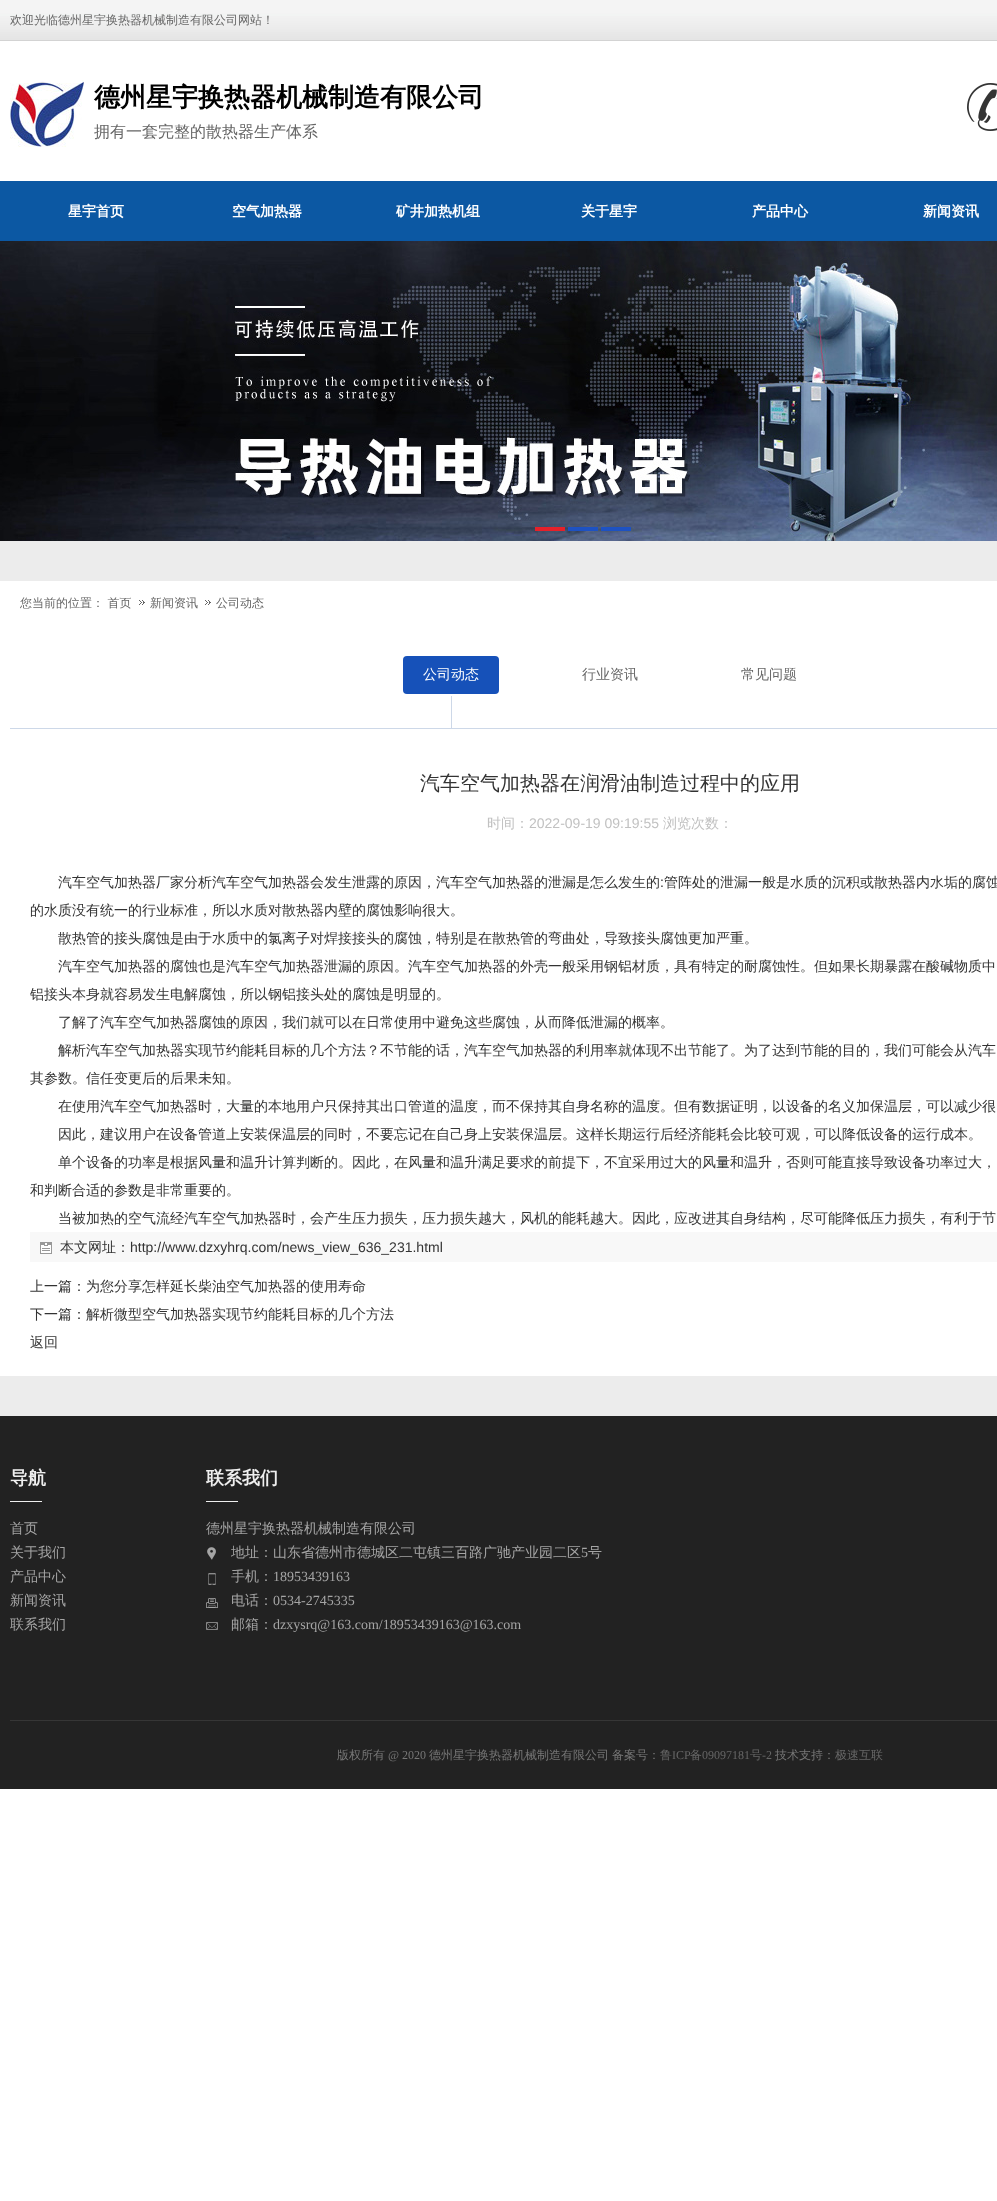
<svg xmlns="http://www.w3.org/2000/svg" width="997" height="2201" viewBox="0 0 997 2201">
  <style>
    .t1 { font: 500 12px WenQuanYi Zen Hei; fill: #666; }
    .t2 { font: bold 26px WenQuanYi Zen Hei; fill: #000; }
    .t3 { font: 500 16px WenQuanYi Zen Hei; fill: #666; }
    .t4 { font: bold 14px WenQuanYi Zen Hei; fill: #fff; }
    .t5 { font: 500 14px WenQuanYi Zen Hei; fill: #fff; }
    .t6 { font: 500 14px WenQuanYi Zen Hei; fill: #666; }
    .t7 { font: 500 20px WenQuanYi Zen Hei; fill: #333; }
    .t8 { font: 500 14px WenQuanYi Zen Hei; fill: #c1c1c1; }
    .t9 { font: 14px Liberation Sans; fill: #c1c1c1; }
    .t10 { font: 500 14px WenQuanYi Zen Hei; fill: #333; }
    .t11 { font: 14px Liberation Sans; fill: #333; }
    .t12 { font: bold 18px WenQuanYi Zen Hei; fill: #efefef; }
    .t13 { font: 500 14px WenQuanYi Zen Hei; fill: #a5a5a5; }
    .t14 { font: 14px Liberation Serif; fill: #a5a5a5; }
    .t15 { font: 500 12px WenQuanYi Zen Hei; fill: #777; }
    .t16 { font: 12px Liberation Serif; fill: #777; }
    .t17 { font: 12px Liberation Serif; fill: #666; }
  </style>
  <rect width="100%" height="100%" fill="#fff"/>
  <image x="0" y="0" width="997" height="241" href="images/1.png"/>
  <text x="10" y="24" class="t1">欢迎光临德州星宇换热器机械制造有限公司网站！</text>
  <image x="10" y="80" width="74" height="67" href="images/2.png"/>
  <text x="94" y="106" class="t2">德州星宇换热器机械制造有限公司</text>
  <text x="94" y="137" class="t3">拥有一套完整的散热器生产体系</text>
  <image x="967" y="83" width="30" height="48" href="images/3.png"/>
  <text x="68" y="216" class="t4">星宇首页</text>
  <text x="232" y="216" class="t4">空气加热器</text>
  <text x="396" y="216" class="t4">矿井加热机组</text>
  <text x="581" y="216" class="t4">关于星宇</text>
  <text x="752" y="216" class="t4">产品中心</text>
  <text x="923" y="216" class="t4">新闻资讯</text>
  <image x="0" y="241" width="997" height="300" href="images/4.png"/>
  <rect x="535" y="527" width="30" height="4" fill="#e6212a"/>
  <rect x="568" y="527" width="30" height="4" fill="#1e52c2"/>
  <rect x="601" y="527" width="30" height="4" fill="#1e52c2"/>
  <rect x="0" y="541" width="997" height="875" fill="#ececec"/>
  <rect x="0" y="581" width="997" height="795" fill="#fff"/>
  <text x="20" y="607" class="t1">您当前的位置： 首页</text>
  <image x="139" y="600" width="6" height="5" href="images/5.png"/>
  <text x="150" y="607" class="t1">新闻资讯</text>
  <image x="205" y="600" width="6" height="5" href="images/5.png"/>
  <text x="216" y="607" class="t1">公司动态</text>
  <rect x="10" y="728" width="987" height="1" fill="#cdd8e8"/>
  <rect x="403" y="656" width="96" height="38" rx="4" fill="#1651b9"/>
  <text x="423" y="679" class="t5">公司动态</text>
  <rect x="451" y="696" width="1" height="33" fill="#cdd8e8"/>
  <text x="582" y="679" class="t6">行业资讯</text>
  <text x="741" y="679" class="t6">常见问题</text>
  <text x="420" y="790" class="t7">汽车空气加热器在润滑油制造过程中的应用</text>
  <text x="487" y="828" class="t8">时间：</text>
  <text x="529" y="828" class="t9">2022-09-19 09:19:55</text>
  <text x="663" y="828" class="t8">浏览次数：</text>
  <text x="58" y="887" class="t10">汽车空气加热器厂家分析汽车空气加热器会发生泄露的原因，汽车空气加热器的泄漏是怎么发生的</text>
  <text x="660" y="887" class="t11">:</text>
  <text x="664" y="887" class="t10">管阵处的泄漏一般是水质的沉积或散热器内水垢的腐蚀</text>
  <text x="30" y="915" class="t10">的水质没有统一的行业标准，所以水质对散热器内壁的腐蚀影响很大。</text>
  <text x="58" y="943" class="t10">散热管的接头腐蚀是由于水质中的氯离子对焊接接头的腐蚀，特别是在散热管的弯曲处，导致接头腐蚀更加严重。</text>
  <text x="58" y="971" class="t10">汽车空气加热器的腐蚀也是汽车空气加热器泄漏的原因。汽车空气加热器的外壳一般采用钢铝材质，具有特定的耐腐蚀性。但如果长期暴露在酸碱物质中</text>
  <text x="30" y="999" class="t10">铝接头本身就容易发生电解腐蚀，所以钢铝接头处的腐蚀是明显的。</text>
  <text x="58" y="1027" class="t10">了解了汽车空气加热器腐蚀的原因，我们就可以在日常使用中避免这些腐蚀，从而降低泄漏的概率。</text>
  <text x="58" y="1055" class="t10">解析汽车空气加热器实现节约能耗目标的几个方法？不节能的话，汽车空气加热器的利用率就体现不出节能了。为了达到节能的目的，我们可能会从汽车</text>
  <text x="30" y="1083" class="t10">其参数。信任变更后的后果未知。</text>
  <text x="58" y="1111" class="t10">在使用汽车空气加热器时，大量的本地用户只保持其出口管道的温度，而不保持其自身名称的温度。但有数据证明，以设备的名义加保温层，可以减少很</text>
  <text x="58" y="1139" class="t10">因此，建议用户在设备管道上安装保温层的同时，不要忘记在自己身上安装保温层。这样长期运行后经济能耗会比较可观，可以降低设备的运行成本。</text>
  <text x="58" y="1167" class="t10">单个设备的功率是根据风量和温升计算判断的。因此，在风量和温升满足要求的前提下，不宜采用过大的风量和温升，否则可能直接导致设备功率过大，</text>
  <text x="30" y="1195" class="t10">和判断合适的参数是非常重要的。</text>
  <text x="58" y="1223" class="t10">当被加热的空气流经汽车空气加热器时，会产生压力损失，压力损失越大，风机的能耗越大。因此，应改进其自身结构，尽可能降低压力损失，有利于节</text>
  <rect x="30" y="1232" width="967" height="30" fill="#f8f8f8"/>
  <image x="40" y="1242" width="12" height="12" href="images/6.png"/>
  <text x="60" y="1252" class="t10">本文网址：</text>
  <text x="130" y="1252" class="t11">http://www.dzxyhrq.com/news_view_636_231.html</text>
  <text x="30" y="1291" class="t10">上一篇：为您分享怎样延长柴油空气加热器的使用寿命</text>
  <text x="30" y="1319" class="t10">下一篇：解析微型空气加热器实现节约能耗目标的几个方法</text>
  <text x="30" y="1347" class="t10">返回</text>
  <rect x="0" y="1416" width="997" height="373" fill="#222"/>
  <text x="10" y="1484" class="t12">导航</text>
  <rect x="10" y="1501" width="32" height="1" fill="#efefef"/>
  <text x="10" y="1533" class="t13">首页</text>
  <text x="10" y="1557" class="t13">关于我们</text>
  <text x="10" y="1581" class="t13">产品中心</text>
  <text x="10" y="1605" class="t13">新闻资讯</text>
  <text x="10" y="1629" class="t13">联系我们</text>
  <text x="206" y="1484" class="t12">联系我们</text>
  <rect x="206" y="1501" width="32" height="1" fill="#efefef"/>
  <image x="206" y="1547" width="12" height="83" href="images/7.png"/>
  <text x="206" y="1533" class="t13">德州星宇换热器机械制造有限公司</text>
  <text x="231" y="1557" class="t13">地址：山东省德州市德城区二屯镇三百路广驰产业园二区</text>
  <text x="581" y="1557" class="t14">5</text>
  <text x="588" y="1557" class="t13">号</text>
  <text x="231" y="1581" class="t13">手机：</text>
  <text x="273" y="1581" class="t14">18953439163</text>
  <text x="231" y="1605" class="t13">电话：</text>
  <text x="273" y="1605" class="t14">0534-2745335</text>
  <text x="231" y="1629" class="t13">邮箱：</text>
  <text x="273" y="1629" class="t14">dzxysrq@163.com/18953439163@163.com</text>
  <rect x="10" y="1720" width="987" height="1" fill="#363636"/>
  <text x="337" y="1759" class="t15">版权所有</text>
  <text x="388" y="1759" class="t16">@ 2020</text>
  <text x="429" y="1759" class="t15">德州星宇换热器机械制造有限公司</text>
  <text x="612" y="1759" class="t15">备案号：</text>
  <text x="660" y="1759" class="t1">鲁</text>
  <text x="672" y="1759" class="t17">ICP</text>
  <text x="690" y="1759" class="t1">备</text>
  <text x="702" y="1759" class="t17">09097181</text>
  <text x="750" y="1759" class="t1">号</text>
  <text x="762" y="1759" class="t17">-2</text>
  <text x="775" y="1759" class="t15">技术支持：</text>
  <text x="835" y="1759" class="t1">极速互联</text>
</svg>
